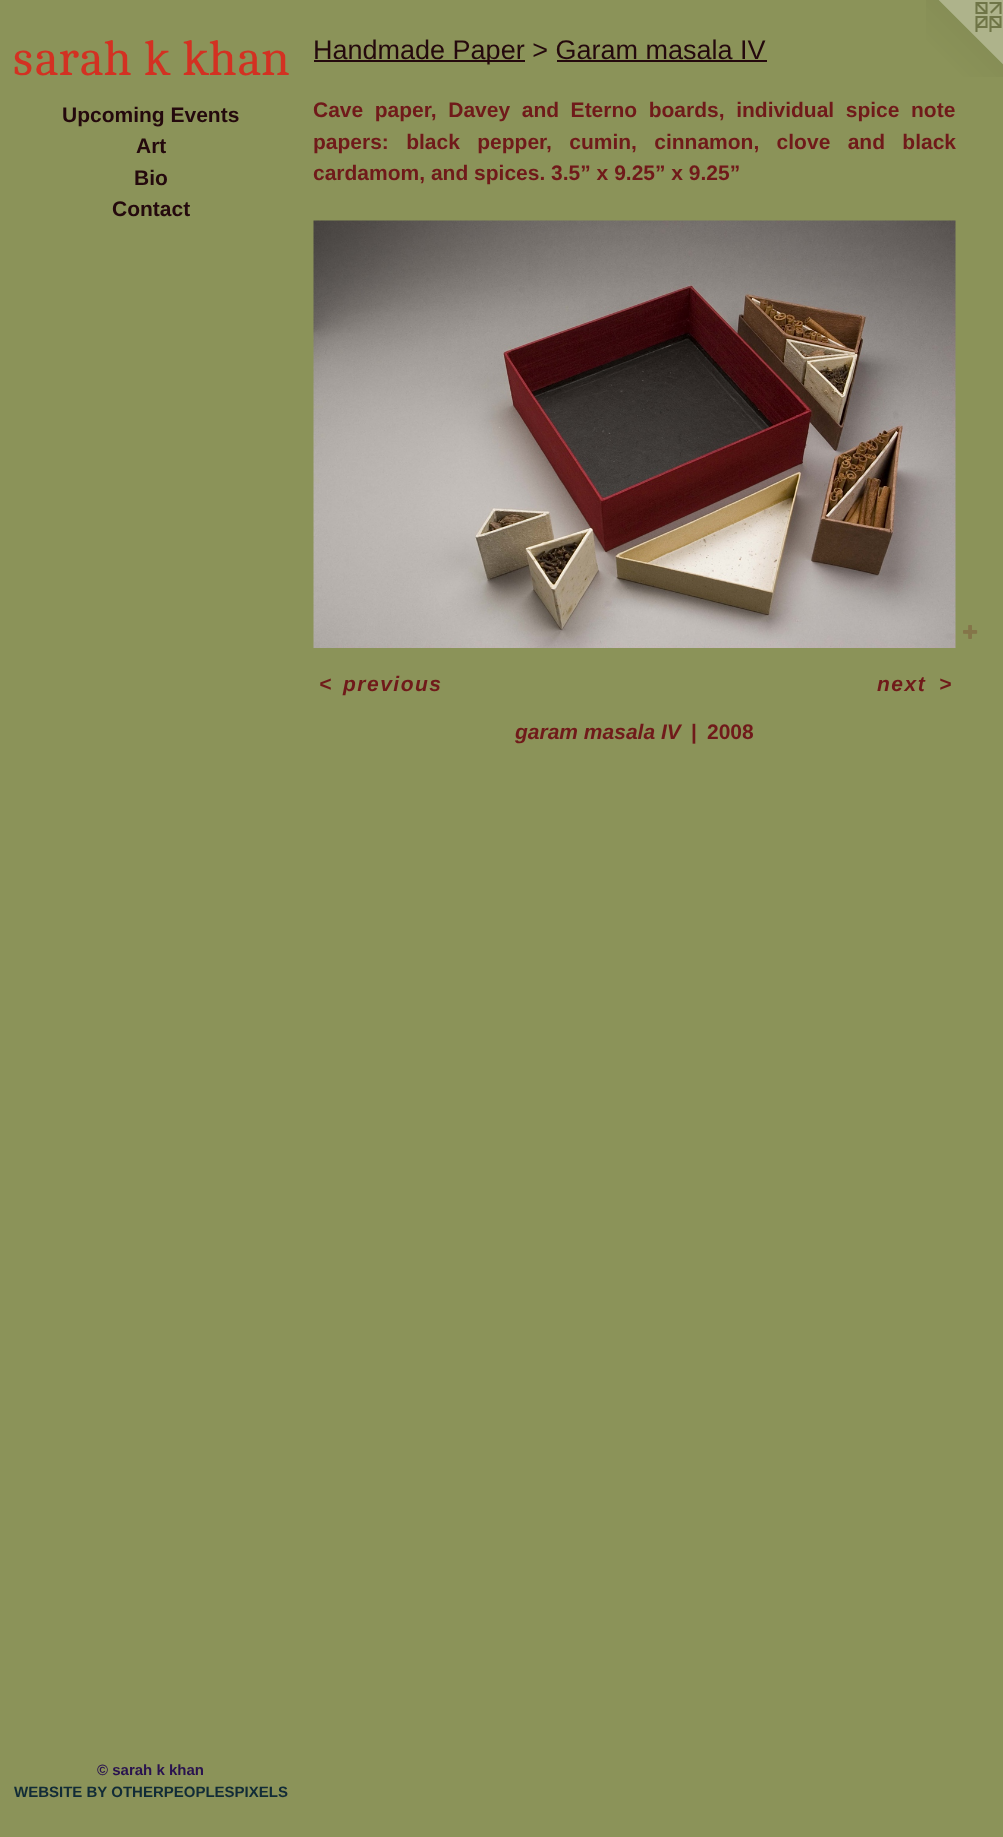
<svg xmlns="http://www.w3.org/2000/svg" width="1003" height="1837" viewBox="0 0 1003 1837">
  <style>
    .t1 { font: 48px Cambo; fill: #d33122; }
    .t2 { font: bold 21px Arimo; fill: #24090d; }
    .t3 { font: bold 15px Liberation Sans; fill: #29124f; }
    .t4 { font: bold 15px Liberation Sans; fill: #112b37; }
    .t5 { font: 27px Liberation Sans; fill: #24090d; }
    .t6 { font: bold 21px Liberation Sans; fill: #701a1a; }
    .t7 { font: italic bold 21px Liberation Sans; letter-spacing: 1.5px; fill: #701a1a; }
    .t8 { font: italic bold 21px Liberation Sans; fill: #701a1a; }
  </style>
  <rect width="100%" height="100%" fill="#8b9359"/>
  <text x="12" y="75" class="t1">sarah k khan</text>
  <text x="62" y="122" class="t2">Upcoming Events</text>
  <text x="136" y="153" class="t2">Art</text>
  <text x="134" y="185" class="t2">Bio</text>
  <text x="112" y="216" class="t2">Contact</text>
  <text x="97" y="1775" class="t3">© sarah k khan</text>
  <text x="14" y="1797" class="t4">WEBSITE BY OTHERPEOPLESPIXELS</text>
  <rect x="314" y="60" width="211" height="2" fill="#24090d"/>
  <text x="313" y="59" class="t5">Handmade Paper &gt; Garam masala IV</text>
  <rect x="557" y="60" width="210" height="2" fill="#24090d"/>
  <text x="313" y="117" word-spacing="5.75" class="t6">Cave paper, Davey and Eterno boards, individual spice note</text>
  <text x="313" y="149" word-spacing="11.5" class="t6">papers: black pepper, cumin, cinnamon, clove and black</text>
  <text x="313" y="180" class="t6">cardamom, and spices. 3.5” x 9.25” x 9.25”</text>
  <image x="313" y="220" width="643" height="428" href="images/1.png"/>
  <image x="963" y="625" width="15" height="14" href="images/2.png"/>
  <text x="319" y="691" class="t7">&lt;</text>
  <text x="343" y="691" class="t7">previous</text>
  <text x="877" y="691" class="t7">next</text>
  <text x="939" y="691" class="t7">&gt;</text>
  <text x="515" y="739" class="t8">garam masala IV</text>
  <text x="691" y="739" class="t6">|</text>
  <text x="707" y="739" class="t6">2008</text>
  <image x="926" y="0" width="77" height="77" href="images/3.png"/>
</svg>
